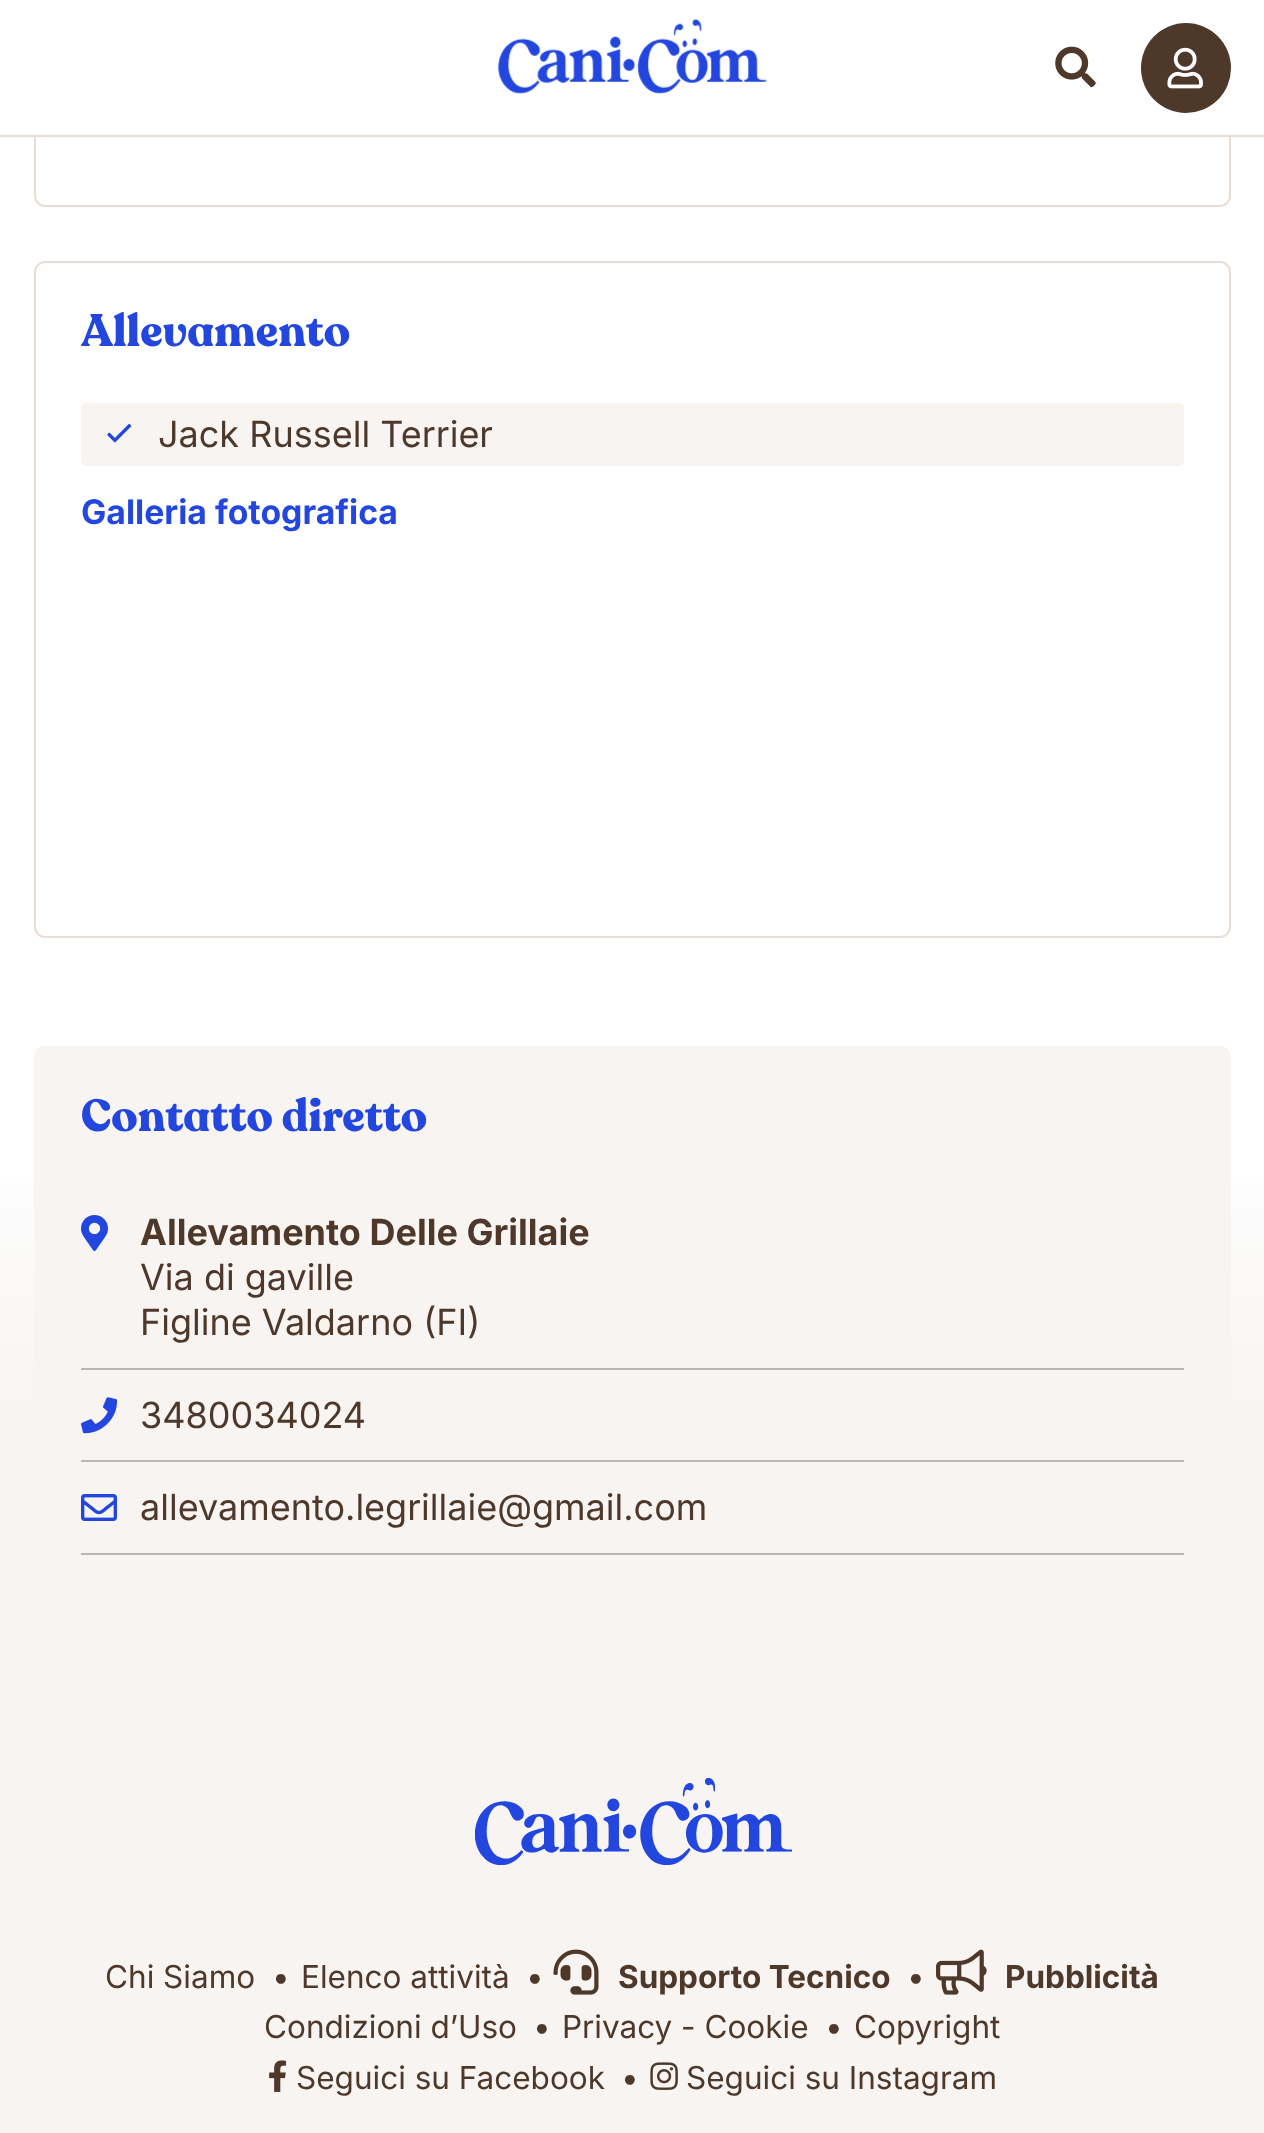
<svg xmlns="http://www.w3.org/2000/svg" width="1264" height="2133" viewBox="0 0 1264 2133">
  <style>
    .t1 { font: bold 45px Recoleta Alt; fill: #2246de; }
    .t2 { font: 36px Inter; fill: #4d382a; }
    .t3 { font: bold 33.75px Inter; fill: #2246de; }
    .t4 { font: bold 36px Inter; fill: #4d382a; }
    .t5 { font: 31.5px Inter; fill: #4d382a; }
    .t6 { font: bold 31.5px Inter; fill: #4d382a; }
  </style>
  <defs>
    <linearGradient id="g1" gradientUnits="userSpaceOnUse" x1="632" y1="-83" x2="632" y2="1710"><stop offset="0" stop-color="#fff"/><stop offset="0.7" stop-color="#fdfdfd"/><stop offset="0.85" stop-color="#f7f4f1"/><stop offset="1" stop-color="#f7f4f1"/></linearGradient>
  </defs>
  <rect width="100%" height="100%" fill="#fff"/>
  <rect x="35" y="-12" width="1195" height="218" rx="10" fill="none" stroke="#e8ded6" stroke-width="2"/>
  <rect x="34" y="0" width="1197" height="135" fill="#fff"/>
  <image x="498" y="18" width="269" height="76" href="images/1.png"/>
  <image x="1055" y="46" width="41" height="42" href="images/2.png"/>
  <circle cx="1186" cy="68" r="45" fill="#4d382a"/>
  <image x="1167" y="47" width="36" height="42" href="images/3.png"/>
  <rect x="0" y="135" width="1264" height="2" fill="#e8ded6"/>
  <rect x="0" y="1183" width="1264" height="527" fill="url(#g1)"/>
  <rect x="35" y="262" width="1195" height="675" rx="10" fill="none" stroke="#e8ded6" stroke-width="2"/>
  <text x="81" y="346" class="t1">Allevamento</text>
  <rect x="81" y="403" width="1103" height="63" rx="5" fill="#f7f4f1"/>
  <image x="107" y="423" width="25" height="20" href="images/4.png"/>
  <text x="158" y="447" class="t2">Jack Russell Terrier</text>
  <text x="81" y="524" class="t3">Galleria fotografica</text>
  <rect x="35" y="1047" width="1195" height="554" rx="10" fill="#f7f4f1" stroke="#f7f4f1" stroke-width="2"/>
  <text x="81" y="1131" class="t1">Contatto diretto</text>
  <rect x="81" y="1368" width="1103" height="2" fill="#b9b7b5"/>
  <image x="81" y="1215" width="27" height="36" href="images/5.png"/>
  <text x="140" y="1245" class="t4">Allevamento Delle Grillaie</text>
  <text x="140" y="1290" class="t2">Via di gaville</text>
  <text x="140" y="1335" class="t2">Figline Valdarno (FI)</text>
  <rect x="81" y="1460" width="1103" height="2" fill="#b9b7b5"/>
  <image x="81" y="1397" width="37" height="37" href="images/6.png"/>
  <text x="140" y="1428" class="t2">3480034024</text>
  <rect x="81" y="1553" width="1103" height="2" fill="#b9b7b5"/>
  <image x="81" y="1494" width="36" height="27" href="images/7.png"/>
  <text x="140" y="1520" class="t2">allevamento.legrillaie@gmail.com</text>
  <rect x="0" y="1710" width="1264" height="423" fill="#f7f4f1"/>
  <image x="475" y="1778" width="317" height="87" href="images/8.png"/>
  <text x="105" y="1988" class="t5">Chi Siamo</text>
  <text x="272" y="1988" class="t5">•</text>
  <text x="301" y="1988" class="t5">Elenco attività</text>
  <text x="526" y="1988" class="t5">•</text>
  <image x="553" y="1949" width="46" height="46" href="images/9.png"/>
  <text x="618" y="1988" class="t6">Supporto Tecnico</text>
  <text x="907" y="1988" class="t5">•</text>
  <image x="936" y="1949" width="51" height="46" href="images/10.png"/>
  <text x="1005" y="1988" class="t6">Pubblicità</text>
  <text x="264" y="2038" class="t5">Condizioni d’Uso</text>
  <text x="533" y="2038" class="t5">•</text>
  <text x="562" y="2038" class="t5">Privacy - Cookie</text>
  <text x="825" y="2038" class="t5">•</text>
  <text x="854" y="2038" class="t5">Copyright</text>
  <image x="269" y="2060" width="18" height="32" href="images/11.png"/>
  <text x="296" y="2089" class="t5">Seguici su Facebook</text>
  <text x="621" y="2089" class="t5">•</text>
  <image x="650" y="2062" width="28" height="28" href="images/12.png"/>
  <text x="686" y="2089" class="t5">Seguici su Instagram</text>
</svg>
